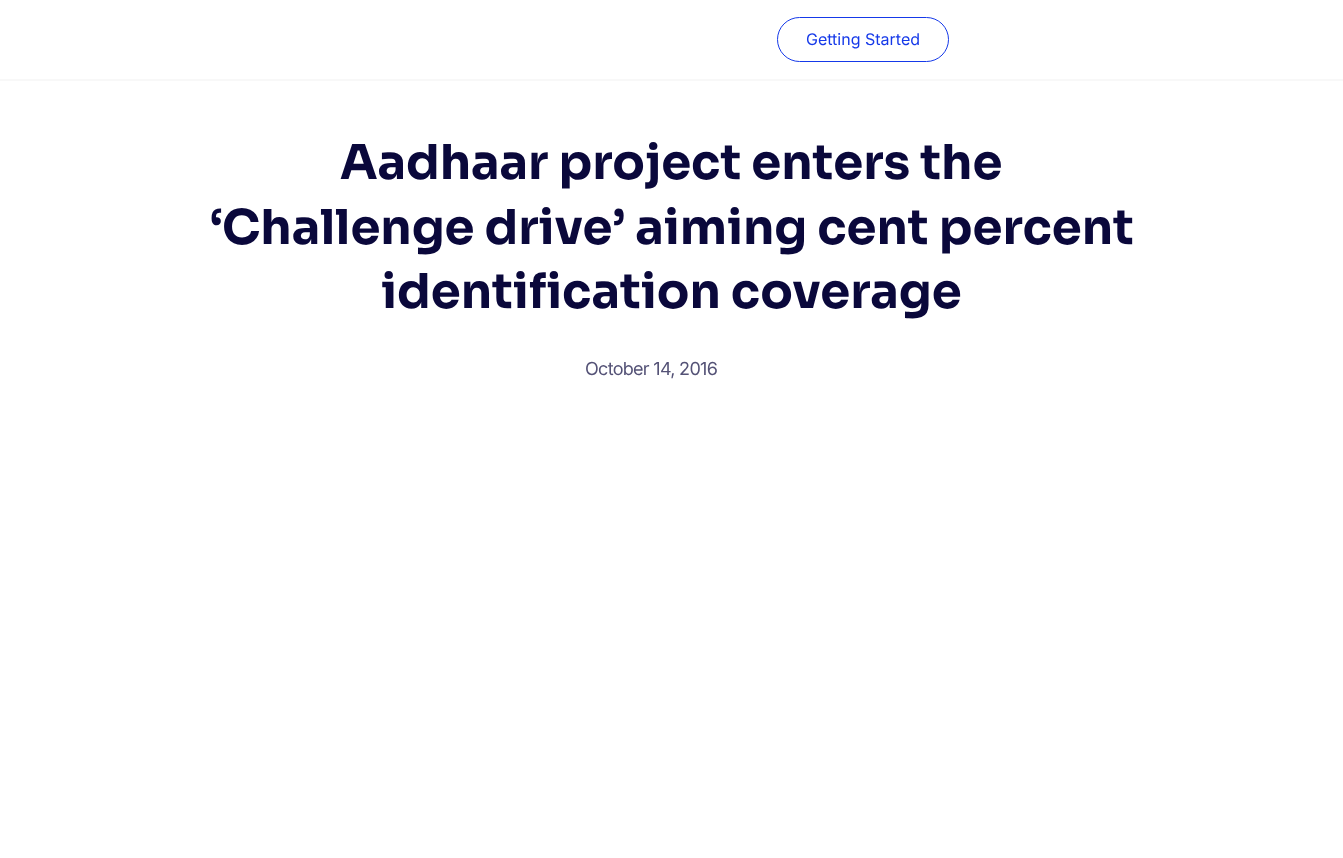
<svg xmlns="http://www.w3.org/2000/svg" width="1343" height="858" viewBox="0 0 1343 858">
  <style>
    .t1 { font: 16px Inter; fill: #1539e9; }
    .t2 { font: bold 48px Sora; fill: #0a083b; }
    .t3 { font: 18px Inter; letter-spacing: -0.7px; fill: #545276; }
  </style>
  <rect width="100%" height="100%" fill="#fff"/>
  <rect x="0" y="79" width="1343" height="2" fill="#f8f8f8"/>
  <rect x="777.5" y="17.5" width="171" height="44" rx="22" fill="none" stroke="#1539e9"/>
  <text x="806" y="45" class="t1">Getting Started</text>
  <text x="340" y="179" class="t2">Aadhaar project enters the</text>
  <text x="210" y="244" class="t2">‘Challenge drive’ aiming cent percent</text>
  <text x="381" y="308" class="t2">identification coverage</text>
  <text x="585" y="375" class="t3">October 14, 2016</text>
</svg>
